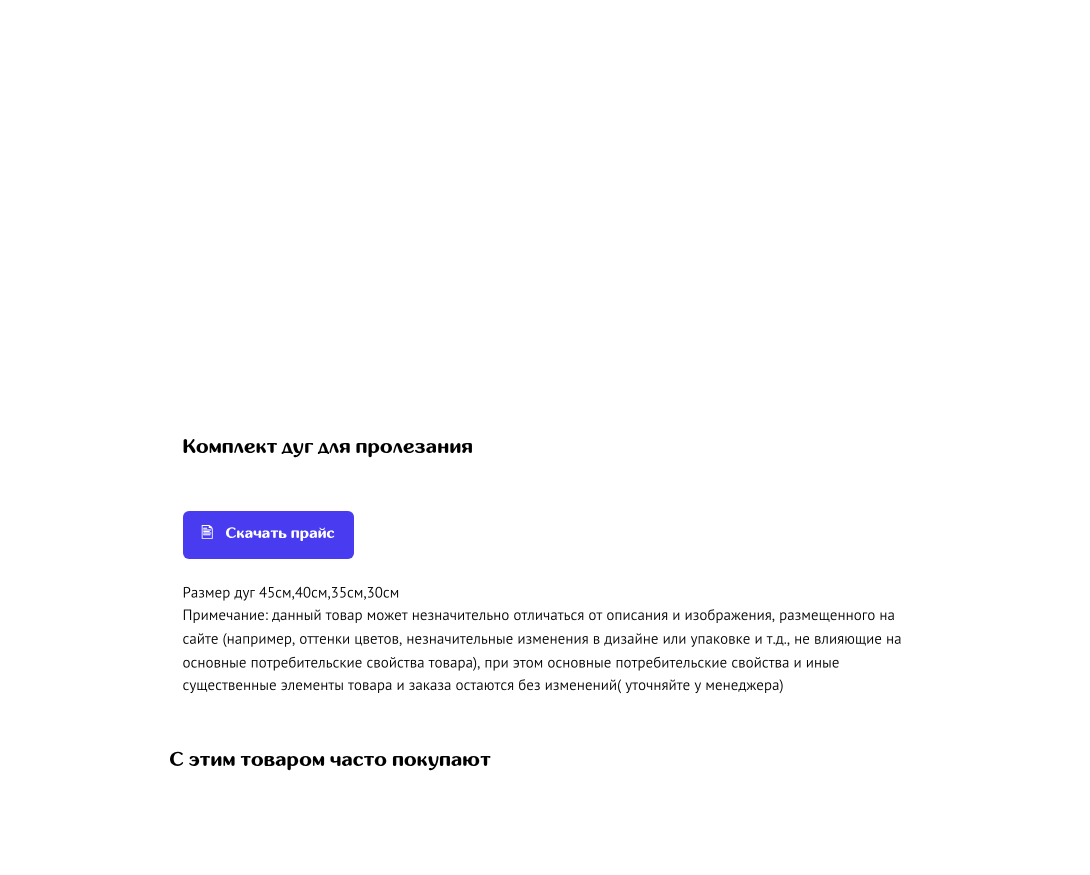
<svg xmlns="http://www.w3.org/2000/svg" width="1090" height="875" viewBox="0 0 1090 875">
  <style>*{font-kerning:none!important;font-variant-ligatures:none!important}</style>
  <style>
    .t1 { font: bold 20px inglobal; fill: #000; }
    .t2 { font: bold 15px 'Noto Sans Symbols 2'; fill: #fff; }
    .t3 { font: bold 15px inglobal; fill: #fff; }
  </style>
  <rect width="100%" height="100%" fill="#fff"/>
  <text x="183" y="453" class="t1">Комплект дуг для пролезания</text>
  <rect x="183" y="511" width="171" height="48" rx="6" fill="#483bf0"/>
  <text x="201" y="538" class="t2">🖹</text>
  <text x="226" y="538" class="t3">Скачать прайс</text>
  <image x="183" y="586" width="216" height="15" href="images/1.png"/>
  <image x="183" y="609" width="711" height="14" href="images/2.png"/>
  <image x="183" y="633" width="718" height="14" href="images/3.png"/>
  <image x="183" y="656" width="656" height="15" href="images/4.png"/>
  <image x="183" y="679" width="600" height="15" href="images/5.png"/>
  <text x="170" y="766" class="t1">С этим товаром часто покупают</text>
</svg>
